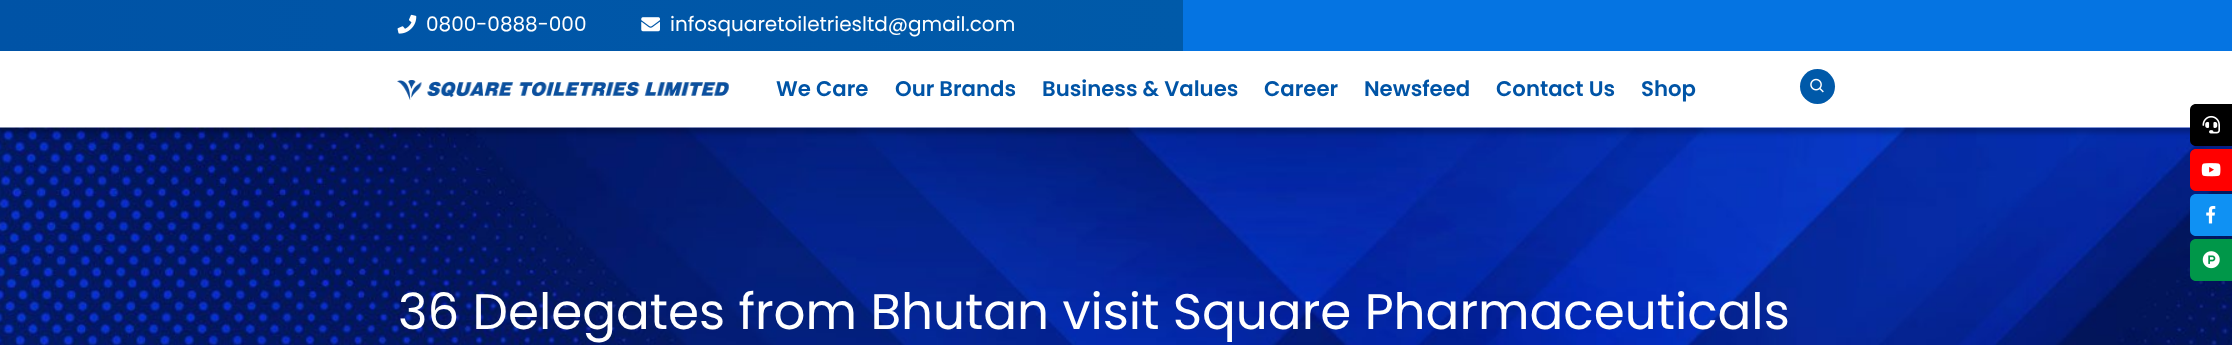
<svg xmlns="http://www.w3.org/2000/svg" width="2232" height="345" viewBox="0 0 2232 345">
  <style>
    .t1 { font: 20px Poppins; fill: #fff; }
    .t2 { font: 600 21.25px Poppins; fill: #0054a6; }
    .t3 { font: 50px Poppins; fill: #fff; }
  </style>
  <defs>
    <clipPath id="clip1"><path d="M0 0H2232V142H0ZM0 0H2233V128H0Z" clip-rule="evenodd"/></clipPath>
    <linearGradient id="g1" gradientUnits="userSpaceOnUse" x1="0" y1="26" x2="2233" y2="26"><stop offset="0" stop-color="#0053a6"/><stop offset="0.53" stop-color="#005aa9"/><stop offset="0.53" stop-color="#0574e2"/><stop offset="1" stop-color="#0574e2"/></linearGradient>
  </defs>
  <rect width="100%" height="100%" fill="#fff"/>
  <image x="0" y="127" width="2232" height="218" href="images/9.png"/>
  <g clip-path="url(#clip1)">
    <rect x="0" y="5" width="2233" height="128" fill="#00000040" filter="blur(2.5px)"/>
  </g>
  <rect x="0" y="0" width="2232" height="51" fill="url(#g1)"/>
  <image x="397" y="14" width="20" height="20" href="images/1.png"/>
  <text x="426" y="31" class="t1">0800-0888-000</text>
  <image x="641" y="17" width="19" height="15" href="images/2.png"/>
  <text x="670" y="31" class="t1">infosquaretoiletriesltd@gmail.com</text>
  <image x="397" y="80" width="332" height="20" href="images/3.png"/>
  <text x="776" y="96" class="t2">We Care</text>
  <text x="895" y="96" class="t2">Our Brands</text>
  <text x="1042" y="96" class="t2">Business &amp; Values</text>
  <text x="1264" y="96" class="t2">Career</text>
  <text x="1364" y="96" class="t2">Newsfeed</text>
  <text x="1496" y="96" class="t2">Contact Us</text>
  <text x="1641" y="96" class="t2">Shop</text>
  <circle cx="1817.5" cy="86.5" r="17.5" fill="#0059a9"/>
  <image x="1810" y="78" width="14" height="15" href="images/4.png"/>
  <path d="M2196 104H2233V146H2196C2192.5 146 2190 143.5 2190 140V110C2190 106.5 2192.5 104 2196 104Z" fill="#000"/>
  <image x="2202" y="115" width="18" height="19" href="images/5.png"/>
  <path d="M2196 149H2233V191H2196C2192.5 191 2190 188.5 2190 185V155C2190 151.5 2192.5 149 2196 149Z" fill="#f00"/>
  <image x="2201" y="163" width="20" height="14" href="images/6.png"/>
  <path d="M2196 194H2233V236H2196C2192.5 236 2190 233.5 2190 230V200C2190 196.5 2192.5 194 2196 194Z" fill="#0f91f3"/>
  <image x="2206" y="205" width="10" height="19" href="images/7.png"/>
  <path d="M2196 239H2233V281H2196C2192.5 281 2190 278.5 2190 275V245C2190 241.5 2192.5 239 2196 239Z" fill="#009749"/>
  <image x="2202" y="251" width="18" height="18" href="images/8.png"/>
  <text x="398" y="329" class="t3">36 Delegates from Bhutan visit Square Pharmaceuticals</text>
</svg>
